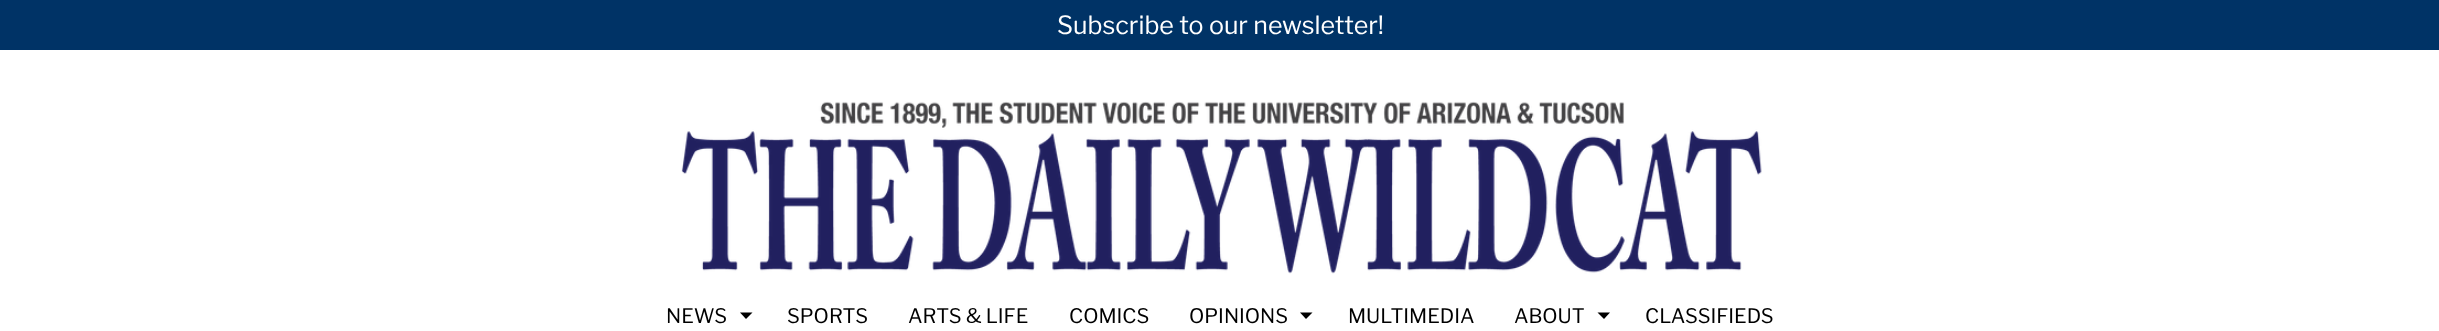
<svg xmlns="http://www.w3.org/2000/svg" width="2439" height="331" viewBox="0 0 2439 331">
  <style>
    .t1 { font: 25px Libre Franklin; fill: #fff; }
    .t2 { font: 20px Libre Franklin; fill: #000; }
  </style>
  <rect width="100%" height="100%" fill="#fff"/>
  <rect x="0" y="0" width="2439" height="50" fill="#036"/>
  <text x="1057" y="34" class="t1">Subscribe to our newsletter!</text>
  <image x="681" y="101" width="1081" height="173" href="images/1.png"/>
  <text x="666" y="323" class="t2">NEWS</text>
  <path d="M740 312.5H752.5L746 319Z" fill="#000"/>
  <text x="787" y="323" class="t2">SPORTS</text>
  <text x="908" y="323" class="t2">ARTS &amp; LIFE</text>
  <text x="1069" y="323" class="t2">COMICS</text>
  <text x="1189" y="323" class="t2">OPINIONS</text>
  <path d="M1300 312.5H1312.5L1306 319Z" fill="#000"/>
  <text x="1348" y="323" class="t2">MULTIMEDIA</text>
  <text x="1514" y="323" class="t2">ABOUT</text>
  <path d="M1597.5 312.5H1610L1604 319Z" fill="#000"/>
  <text x="1645" y="323" class="t2">CLASSIFIEDS</text>
</svg>
